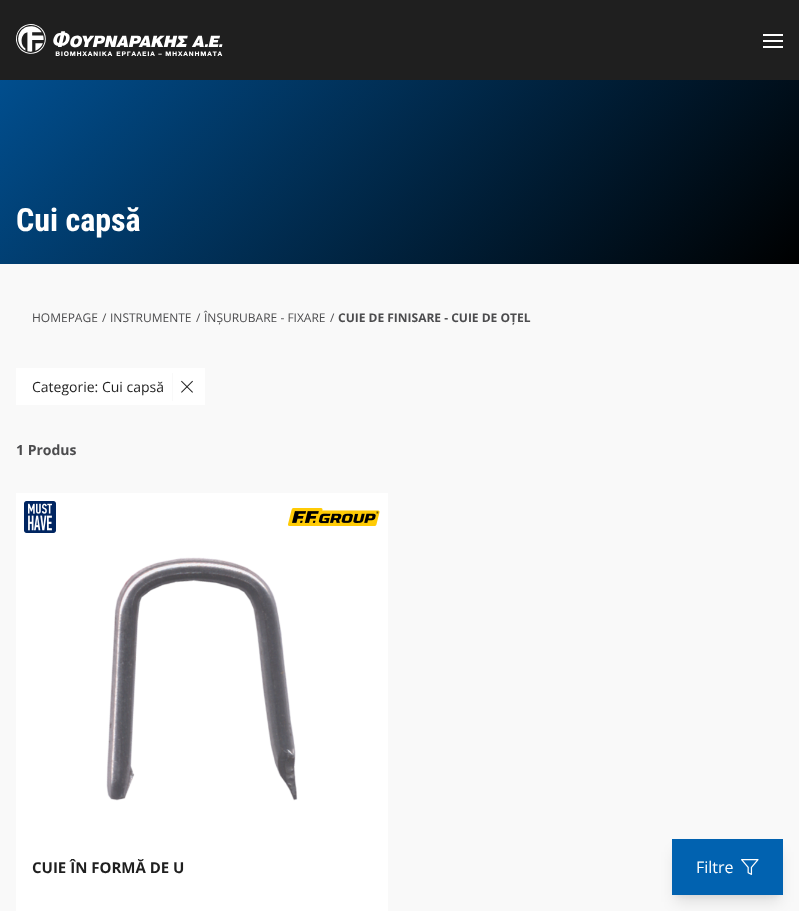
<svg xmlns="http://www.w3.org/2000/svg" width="799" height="911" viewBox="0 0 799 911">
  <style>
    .t1 { font: bold 32px Roboto Condensed; fill: #fff; }
    .t2 { font: 12px Open Sans; fill: #4c4c4e; }
    .t3 { font: bold 12px Open Sans; fill: #4c4c4e; }
    .t4 { font: 14px Open Sans; fill: #1f1f1f; }
    .t5 { font: bold 14px Open Sans; fill: #4c4c4e; }
    .t6 { font: bold 15px Open Sans; fill: #1f1f1f; }
    .t7 { font: 16px Open Sans; fill: #fff; }
  </style>
  <defs>
    <linearGradient id="g1" gradientUnits="userSpaceOnUse" x1="154" y1="-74" x2="645" y2="418"><stop offset="0" stop-color="#014e8e"/><stop offset="1" stop-color="#000"/></linearGradient>
  </defs>
  <rect width="100%" height="100%" fill="#f9f9f9"/>
  <rect x="0" y="0" width="799" height="80" fill="#1f1f1f"/>
  <image x="16" y="24" width="207" height="32" href="images/1.png"/>
  <rect x="763" y="40" width="20" height="2" fill="#fff"/>
  <rect x="763" y="34" width="20" height="2" fill="#fff"/>
  <rect x="763" y="46" width="20" height="2" fill="#fff"/>
  <rect x="0" y="80" width="799" height="184" fill="url(#g1)"/>
  <text x="16" y="231" class="t1">Cui capsă</text>
  <text x="32" y="322" class="t2">HOMEPAGE</text>
  <text x="102" y="322" class="t2">/</text>
  <text x="110" y="322" class="t2">INSTRUMENTE</text>
  <text x="196" y="322" class="t2">/</text>
  <text x="204" y="322" class="t2">ÎNȘURUBARE - FIXARE</text>
  <text x="330" y="322" class="t2">/</text>
  <text x="338" y="322" class="t3">CUIE DE FINISARE - CUIE DE OȚEL</text>
  <rect x="16" y="368" width="189" height="37" fill="#fff"/>
  <text x="32" y="392" class="t4">Categorie: Cui capsă</text>
  <rect x="172" y="373" width="1" height="28" fill="#f9f9f9"/>
  <image x="181" y="380" width="12" height="13" href="images/2.png"/>
  <text x="16" y="455" class="t5">1 Produs</text>
  <rect x="16" y="493" width="372" height="418" fill="#fff"/>
  <image x="24" y="501" width="32" height="32" href="images/3.png"/>
  <image x="288" y="508" width="92" height="18" href="images/4.png"/>
  <image x="106" y="557" width="192" height="244" href="images/5.png"/>
  <text x="32" y="873" class="t6">CUIE ÎN FORMĂ DE U</text>
  <rect x="676" y="847" width="103" height="48" fill="#0000001a" filter="blur(3px)"/>
  <rect x="675" y="852" width="105" height="50" fill="#0000001a" filter="blur(7.5px)"/>
  <rect x="672" y="839" width="111" height="56" fill="#0162b0"/>
  <text x="696" y="873" class="t7">Filtre</text>
  <image x="741" y="859" width="18" height="16" href="images/6.png"/>
</svg>
